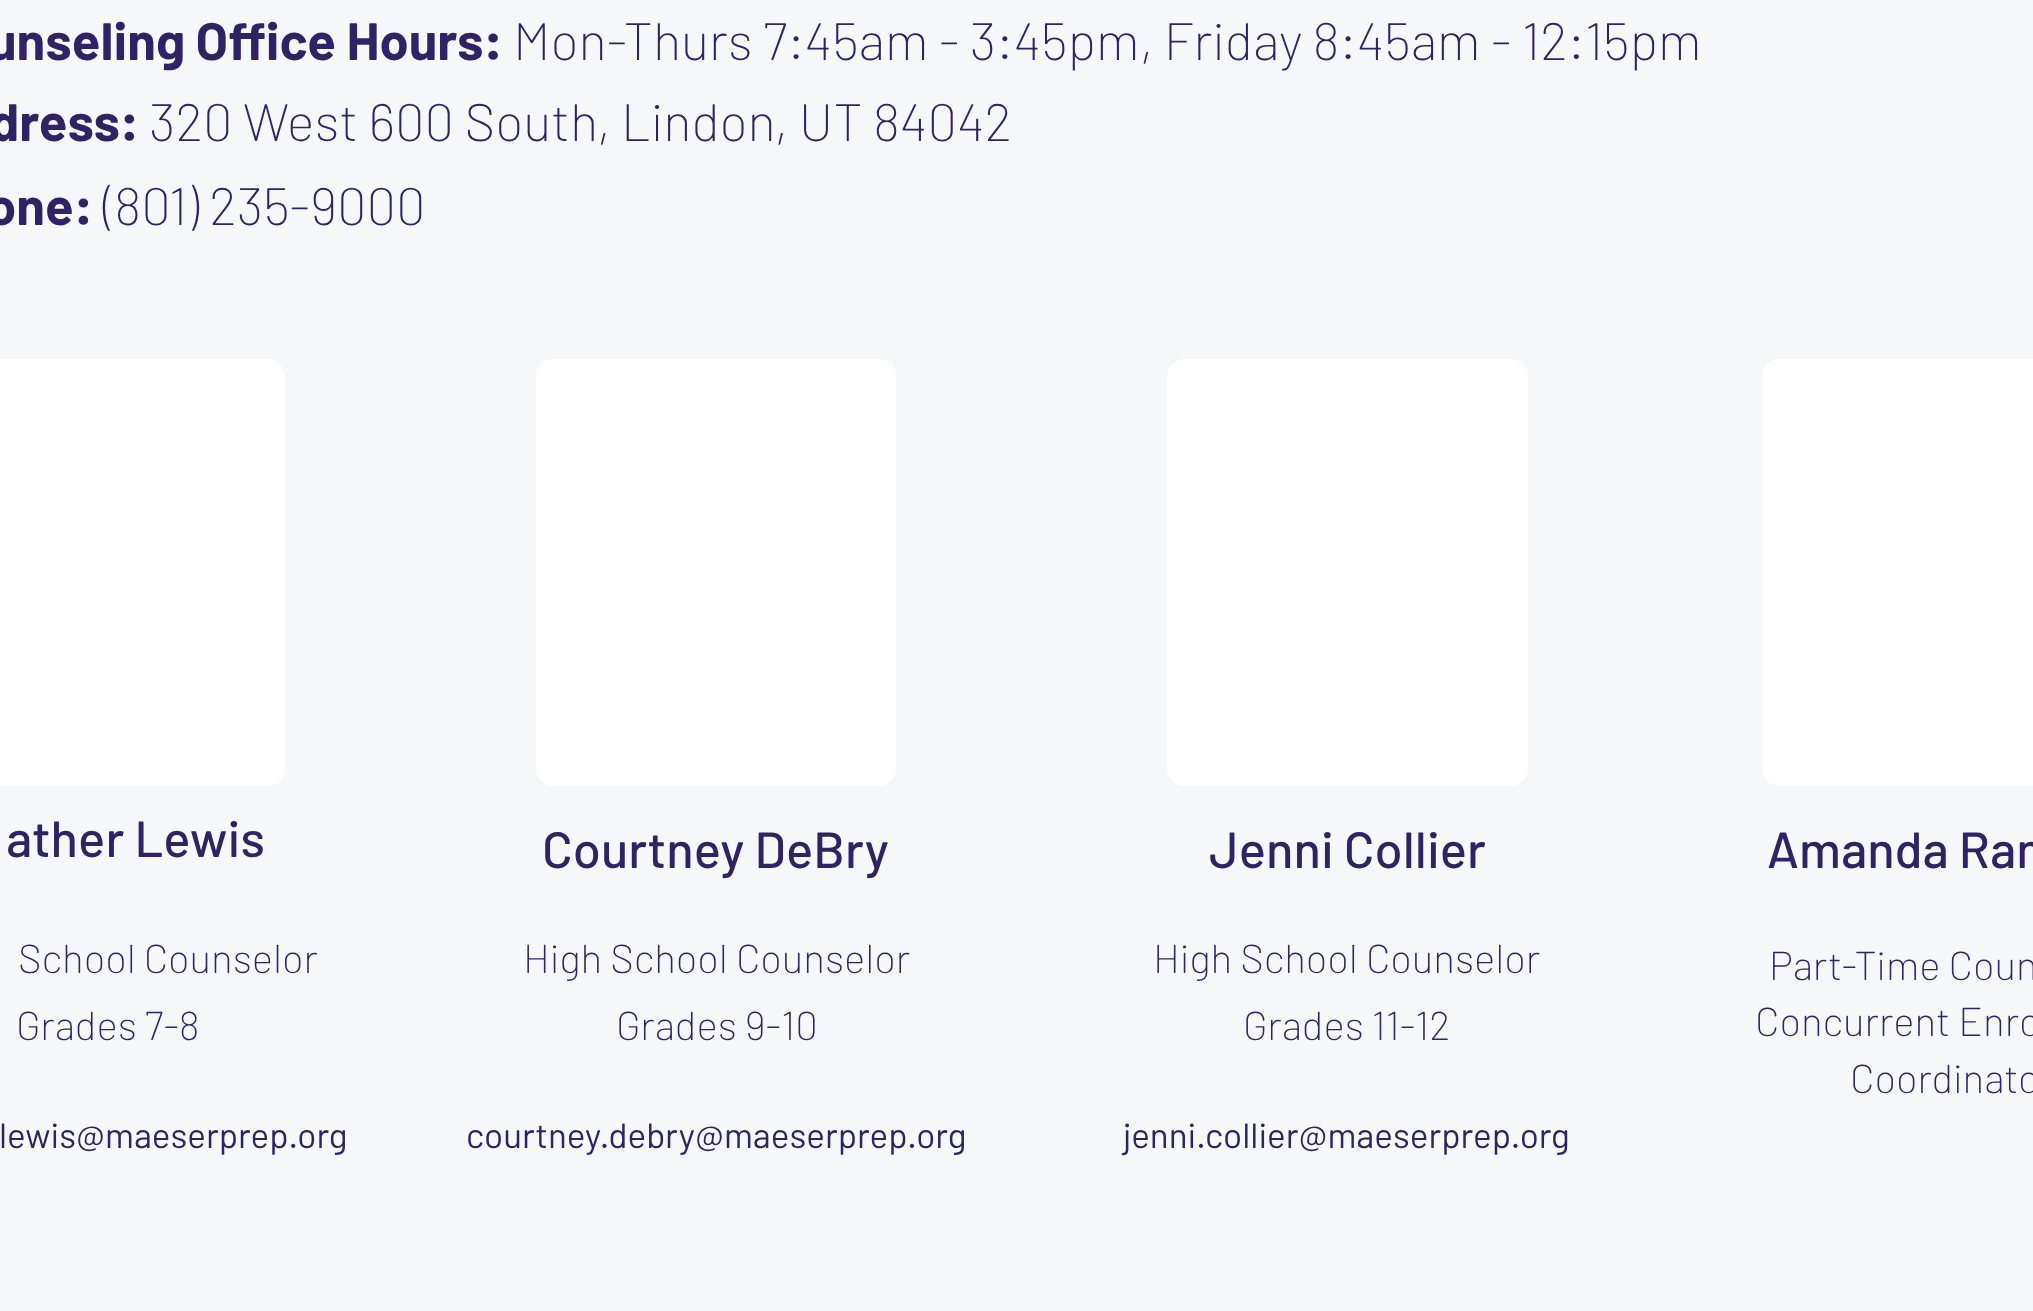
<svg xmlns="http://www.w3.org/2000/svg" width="2033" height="1311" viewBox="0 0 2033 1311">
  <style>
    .t1 { font: bold 52.5px Barlow; fill: #2f2267; }
    .t2 { font: 200 52.5px Barlow; fill: #2f2267; }
    .t3 { font: 500 50.75px Barlow; fill: #2f2267; }
    .t4 { font: 200 40.25px Barlow; fill: #2f2267; }
    .t5 { font: 35px Barlow; fill: #2f2267; }
  </style>
  <rect width="100%" height="100%" fill="#f6f7f8"/>
  <text x="-12" y="60" class="t1">unseling Office Hours:</text>
  <text x="513" y="60" class="t2">Mon-Thurs 7:45am - 3:45pm, Friday 8:45am - 12:15pm</text>
  <text x="-10" y="141" class="t1">dress:</text>
  <text x="149" y="141" class="t2">320 West 600 South, Lindon, UT 84042</text>
  <text x="-13" y="225" class="t1">one:</text>
  <text x="103" y="225" class="t2">(801) 235-9000</text>
  <path d="M0 359H267C277 359 285 367 285 377V768C285 778 277 786 267 786H0Z" fill="#fff"/>
  <rect x="536" y="359" width="360" height="427" rx="18" fill="#fff"/>
  <rect x="1167" y="359" width="361" height="427" rx="18" fill="#fff"/>
  <path d="M1780 359H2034V786H1780C1770 786 1762 778 1762 768V377C1762 367 1770 359 1780 359Z" fill="#fff"/>
  <text x="6" y="857" class="t3">ather Lewis</text>
  <text x="542" y="868" class="t3">Courtney DeBry</text>
  <text x="1209" y="868" class="t3">Jenni Collier</text>
  <text x="1767" y="868" class="t3">Amanda Ran</text>
  <text x="18" y="973" class="t4">School Counselor</text>
  <text x="16" y="1040" class="t4">Grades 7-8</text>
  <text x="523" y="973" class="t4">High School Counselor</text>
  <text x="616" y="1040" class="t4">Grades 9-10</text>
  <text x="1153" y="973" class="t4">High School Counselor</text>
  <text x="1243" y="1040" class="t4">Grades 11-12</text>
  <text x="1769" y="980" class="t4">Part-Time Coun</text>
  <text x="1755" y="1036" class="t4">Concurrent Enro</text>
  <text x="1850" y="1093" class="t4">Coordinato</text>
  <text x="-1" y="1148" class="t5">lewis@maeserprep.org</text>
  <text x="466" y="1148" class="t5">courtney.debry@maeserprep.org</text>
  <text x="1123" y="1148" class="t5">jenni.collier@maeserprep.org</text>
</svg>
